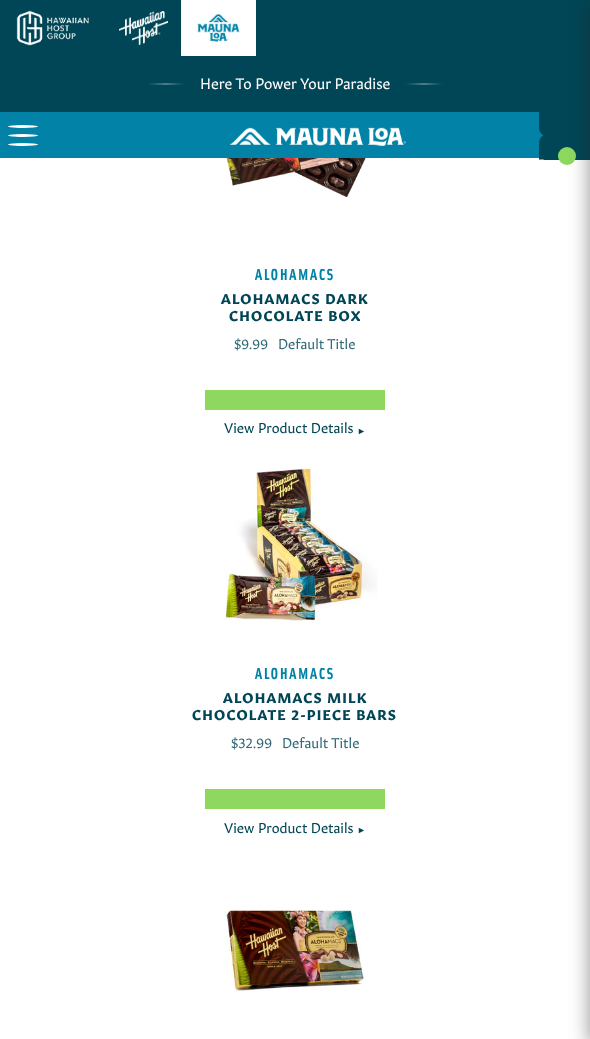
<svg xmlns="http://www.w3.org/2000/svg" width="590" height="1039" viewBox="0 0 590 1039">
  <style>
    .t1 { font: 15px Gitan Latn; fill: #fff; }
    .t2 { font: bold 16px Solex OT; letter-spacing: 1.5px; fill: #0082a7; }
    .t3 { font: bold 14px Gitan Latn; letter-spacing: 1.2px; fill: #004656; }
    .t4 { font: 14px Gitan Latn; fill: #336b78; }
    .t5 { font: 14px Gitan Latn; fill: #004656; }
    .t6 { font: 9px Liberation Sans; fill: #004656; }
  </style>
  <defs>
    <linearGradient id="g1" gradientUnits="userSpaceOnUse" x1="146" y1="84" x2="186" y2="84"><stop offset="0" stop-color="#004656"/><stop offset="0.5" stop-color="#4d7e89"/><stop offset="1" stop-color="#004656"/></linearGradient>
    <linearGradient id="g2" gradientUnits="userSpaceOnUse" x1="404" y1="84" x2="444" y2="84"><stop offset="0" stop-color="#004656"/><stop offset="0.5" stop-color="#4d7e89"/><stop offset="1" stop-color="#004656"/></linearGradient>
    <clipPath id="clip1"><rect x="539" y="110" width="51" height="50"/></clipPath>
  </defs>
  <rect width="100%" height="100%" fill="#fff"/>
  <rect x="0" y="0" width="590" height="112" fill="#004656"/>
  <image x="16" y="10" width="73" height="36" href="images/1.png"/>
  <image x="119" y="11" width="49" height="34" href="images/2.png"/>
  <rect x="181" y="0" width="75" height="56" fill="#fff"/>
  <image x="197" y="13" width="43" height="29" href="images/3.png"/>
  <ellipse cx="166" cy="84" rx="20" ry="1" fill="url(#g1)"/>
  <text x="200" y="89" class="t1">Here To Power Your Paradise</text>
  <ellipse cx="424" cy="84" rx="20" ry="1" fill="url(#g2)"/>
  <rect x="0" y="112" width="543" height="46" fill="#0182a6"/>
  <ellipse cx="23" cy="126.5" rx="15" ry="1.5" fill="#fff"/>
  <ellipse cx="23" cy="135.5" rx="15" ry="1.5" fill="#fff"/>
  <ellipse cx="23" cy="144.5" rx="15" ry="1.5" fill="#fff"/>
  <image x="230" y="127" width="176" height="19" href="images/4.png"/>
  <g clip-path="url(#clip1)">
    <path d="M539 110V127C539 134 543 134 543 135C543 137 539 136 539 144V161H590V110Z" fill="#004656"/>
  </g>
  <image x="539" y="159" width="5" height="1" href="images/5.png"/>
  <circle cx="567" cy="156" r="9" fill="#8ed85f"/>
  <rect x="590" y="5" width="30" height="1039" fill="#21212180" filter="blur(10px)"/>
  <image x="226" y="158" width="140" height="40" href="images/6.png"/>
  <text x="255" y="280" class="t2">ALOHAMACS</text>
  <text x="221" y="304" class="t3">ALOHAMACS DARK</text>
  <text x="229" y="321" class="t3">CHOCOLATE BOX</text>
  <text x="234" y="349" class="t4">$9.99</text>
  <text x="278" y="349" class="t4">Default Title</text>
  <rect x="205" y="390" width="180" height="20" fill="#8ed85f"/>
  <text x="224" y="433" class="t5">View Product Details</text>
  <text x="357" y="434" class="t6">►</text>
  <image x="225" y="467" width="153" height="154" href="images/7.png"/>
  <text x="255" y="679" class="t2">ALOHAMACS</text>
  <text x="223" y="703" class="t3">ALOHAMACS MILK</text>
  <text x="192" y="720" class="t3">CHOCOLATE 2-PIECE BARS</text>
  <text x="231" y="748" class="t4">$32.99</text>
  <text x="282" y="748" class="t4">Default Title</text>
  <rect x="205" y="789" width="180" height="20" fill="#8ed85f"/>
  <text x="224" y="833" class="t5">View Product Details</text>
  <text x="357" y="833" class="t6">►</text>
  <image x="226" y="909" width="140" height="84" href="images/8.png"/>
</svg>
